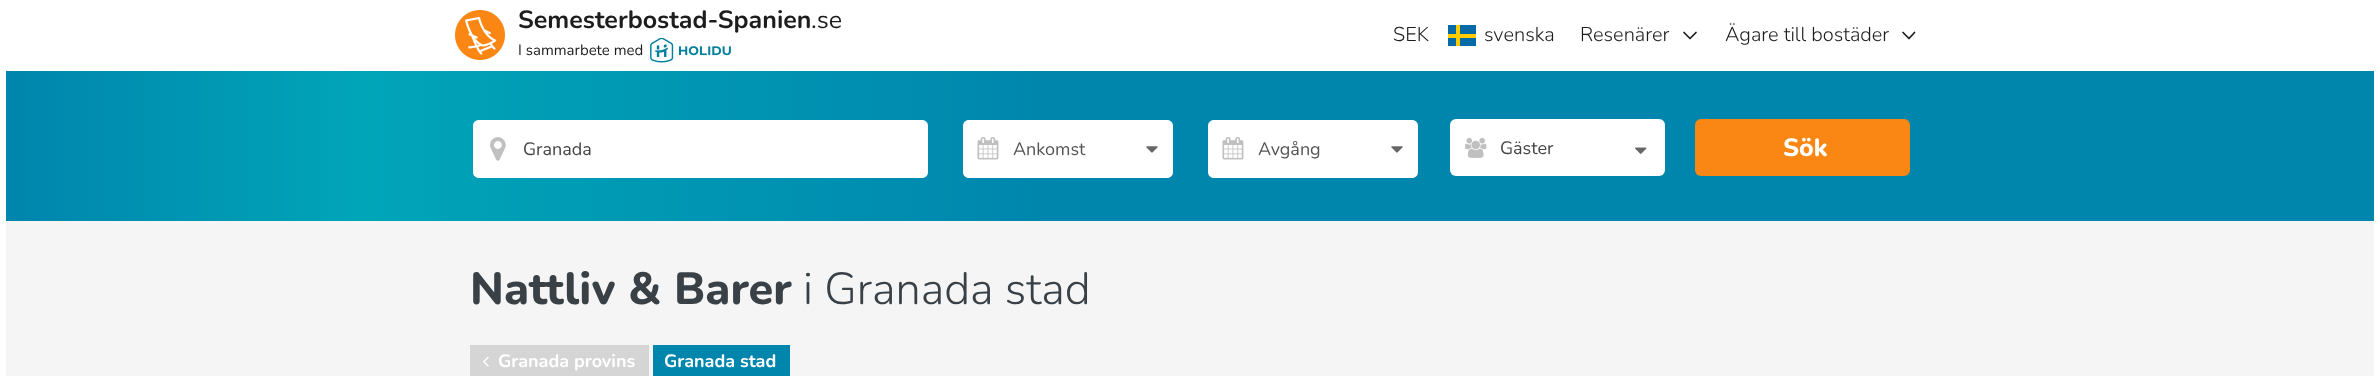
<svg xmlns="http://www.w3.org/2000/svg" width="2380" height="376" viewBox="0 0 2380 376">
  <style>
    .t1 { font: bold 25px Nunito; fill: #1d1d1d; }
    .t2 { font: 25px Nunito; fill: #1d1d1d; }
    .t3 { font: 15px Nunito; fill: #1d1d1d; }
    .t4 { font: 300 20px Nunito; fill: #1d1d1d; }
    .t5 { font: 18px Nunito; fill: #444; }
    .t6 { font: 18px Nunito; fill: #555; }
    .t7 { font: 800 25px Nunito; fill: #fff; }
    .t8 { font: 800 45px Nunito; fill: #394147; }
    .t9 { font: 300 45px Nunito; fill: #394147; }
    .t10 { font: bold 18px Nunito; fill: #fff; }
  </style>
  <defs>
    <linearGradient id="g1" gradientUnits="userSpaceOnUse" x1="6.2" y1="146" x2="2374" y2="146"><stop offset="0" stop-color="#0085ad"/><stop offset="0.15" stop-color="#00a5b8"/><stop offset="0.45" stop-color="#0085ad"/></linearGradient>
  </defs>
  <rect width="100%" height="100%" fill="#fff"/>
  <image x="455" y="10" width="50" height="50" href="images/1.png"/>
  <text x="518" y="28" class="t1">Semesterbostad-Spanien</text>
  <text x="811" y="28" class="t2">.se</text>
  <text x="518" y="55" class="t3">I sammarbete med</text>
  <image x="650" y="38" width="81" height="25" href="images/2.png"/>
  <text x="1393" y="41" class="t4">SEK</text>
  <rect x="1448" y="25" width="28" height="21" fill="#066aa7"/>
  <rect x="1448" y="34" width="28" height="4" fill="#fecc00"/>
  <rect x="1456" y="25" width="4" height="21" fill="#fecc00"/>
  <text x="1484" y="41" class="t4">svenska</text>
  <text x="1580" y="41" class="t4">Resenärer</text>
  <path d="M1696 32.5L1690 38.5L1684 32.5" fill="none" stroke="#1d1d1d" stroke-width="1.7" stroke-linecap="round" stroke-linejoin="round"/>
  <text x="1725" y="41" class="t4">Ägare till bostäder</text>
  <path d="M1914.5 32.5L1909 38.5L1903 32.5" fill="none" stroke="#1d1d1d" stroke-width="1.7" stroke-linecap="round" stroke-linejoin="round"/>
  <rect x="6" y="71" width="2368" height="150" fill="url(#g1)"/>
  <path d="M479 120H523V178H479C475.5 178 473 175.5 473 172V126C473 122.5 475.5 120 479 120Z" fill="#fff"/>
  <image x="490" y="137" width="16" height="24" href="images/3.png"/>
  <path d="M523 120H922C925.5 120 928 122.5 928 126V172C928 175.5 925.5 178 922 178H523Z" fill="#fff"/>
  <text x="523" y="155" class="t5">Granada</text>
  <path d="M969 120H1013V178H969C965.5 178 963 175.5 963 172V126C963 122.5 965.5 120 969 120Z" fill="#fff"/>
  <image x="977" y="137" width="22" height="23" href="images/4.png"/>
  <rect x="1013" y="120" width="131" height="58" fill="#fff"/>
  <text x="1013" y="155" class="t6">Ankomst</text>
  <path d="M1144 120H1167C1170.5 120 1173 122.5 1173 126V172C1173 175.5 1170.5 178 1167 178H1144Z" fill="#fff"/>
  <image x="1146" y="146" width="12" height="7" href="images/5.png"/>
  <path d="M1214 120H1258V178H1214C1210.5 178 1208 175.5 1208 172V126C1208 122.5 1210.5 120 1214 120Z" fill="#fff"/>
  <image x="1222" y="137" width="22" height="23" href="images/4.png"/>
  <rect x="1258" y="120" width="131" height="58" fill="#fff"/>
  <text x="1258" y="155" class="t6">Avgång</text>
  <path d="M1389 120H1412C1415.5 120 1418 122.5 1418 126V172C1418 175.5 1415.5 178 1412 178H1389Z" fill="#fff"/>
  <image x="1391" y="146" width="12" height="7" href="images/5.png"/>
  <rect x="1450" y="119" width="215" height="57" rx="6" fill="#fff"/>
  <image x="1465" y="137" width="22" height="21" href="images/6.png"/>
  <text x="1500" y="154" class="t5">Gäster</text>
  <image x="1635" y="147" width="12" height="7" href="images/7.png"/>
  <rect x="1695" y="119" width="215" height="57" rx="6" fill="#fa8613"/>
  <text x="1783" y="156" class="t7">Sök</text>
  <rect x="6" y="221" width="2368" height="155" fill="#f5f5f5"/>
  <text x="470" y="304" class="t8">Nattliv &amp; Barer</text>
  <text x="803" y="304" class="t9">i Granada stad</text>
  <rect x="470" y="345" width="179" height="31" fill="#d5d5d5"/>
  <image x="483" y="356" width="6" height="11" href="images/8.png"/>
  <text x="498" y="367" class="t10">Granada provins</text>
  <rect x="653" y="345" width="137" height="31" fill="#0085ad"/>
  <text x="664" y="367" class="t10">Granada stad</text>
</svg>
